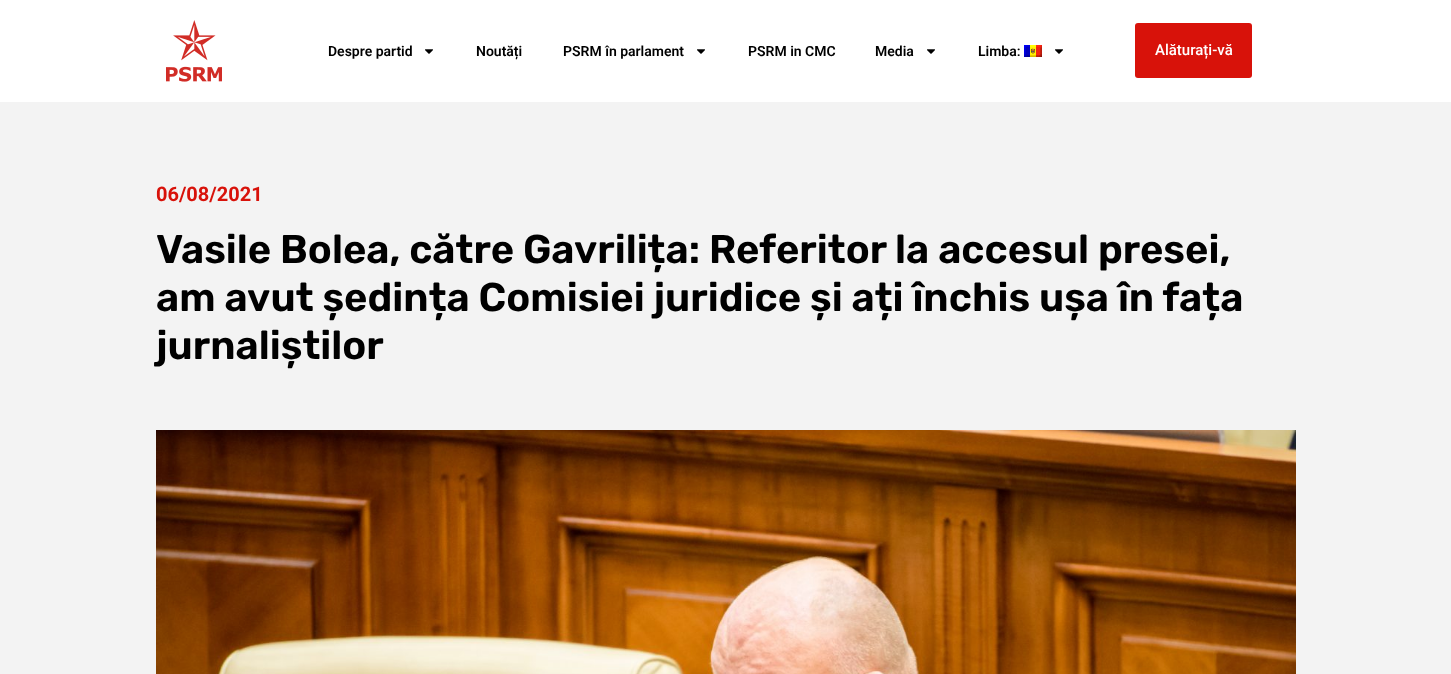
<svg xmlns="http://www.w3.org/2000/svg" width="1451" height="674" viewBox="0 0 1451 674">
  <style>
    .t1 { font: 600 14px Roboto; fill: #000; }
    .t2 { font: 500 15px Roboto; fill: #fff; }
    .t3 { font: bold 20px Roboto; fill: #d8120a; }
    .t4 { font: 600 40px Rubik; fill: #000; }
  </style>
  <rect width="100%" height="100%" fill="#fff"/>
  <image x="166" y="20" width="56" height="62" href="images/1.png"/>
  <text x="328" y="56" class="t1">Despre partid</text>
  <image x="425" y="49" width="8" height="5" href="images/2.png"/>
  <text x="476" y="56" class="t1">Noutăți</text>
  <text x="563" y="56" class="t1">PSRM în parlament</text>
  <image x="697" y="49" width="8" height="5" href="images/2.png"/>
  <text x="748" y="56" class="t1">PSRM in CMC</text>
  <text x="875" y="56" class="t1">Media</text>
  <image x="927" y="49" width="8" height="5" href="images/2.png"/>
  <text x="978" y="56" class="t1">Limba:</text>
  <image x="1024" y="45" width="18" height="12" href="images/3.png"/>
  <image x="1055" y="49" width="8" height="5" href="images/2.png"/>
  <rect x="1135" y="23" width="117" height="55" rx="3" fill="#d8120a"/>
  <text x="1155" y="55" class="t2">Alăturați-vă</text>
  <rect x="0" y="102" width="1451" height="572" fill="#f3f3f3"/>
  <text x="156" y="201" class="t3">06/08/2021</text>
  <text x="156" y="263" class="t4">Vasile Bolea, către Gavrilița: Referitor la accesul presei,</text>
  <text x="156" y="311" class="t4">am avut ședința Comisiei juridice și ați închis ușa în fața</text>
  <text x="156" y="359" class="t4">jurnaliștilor</text>
  <image x="156" y="430" width="1140" height="244" href="images/4.png"/>
</svg>
